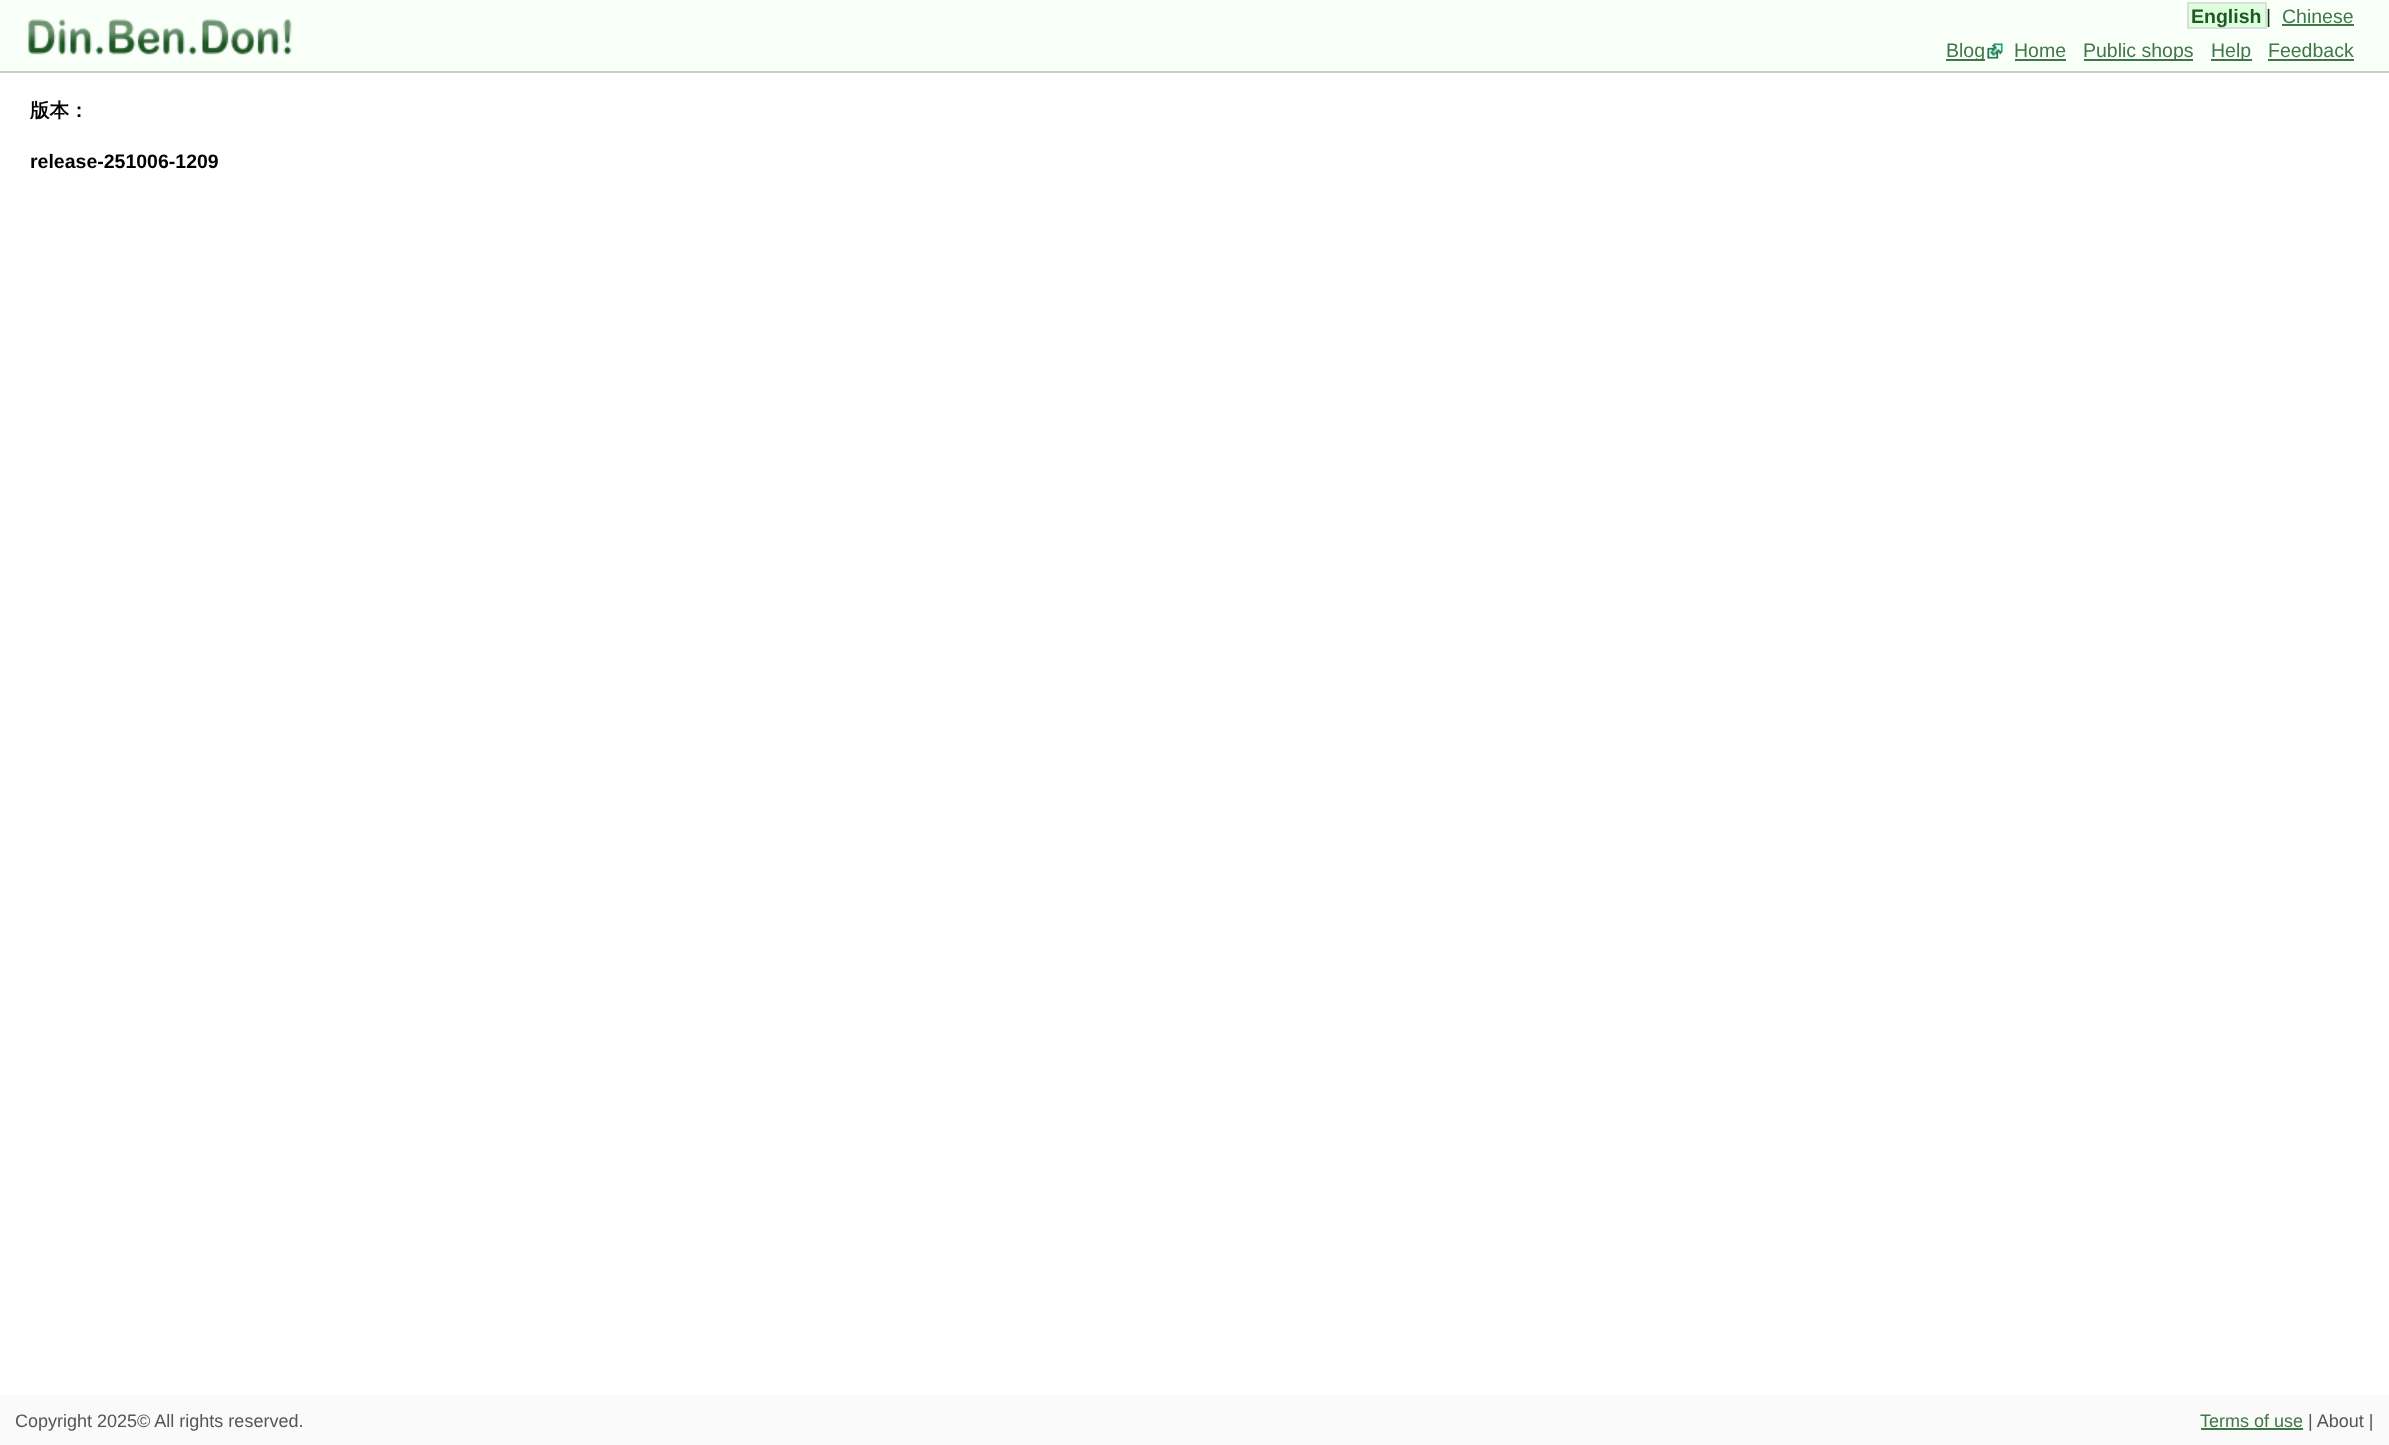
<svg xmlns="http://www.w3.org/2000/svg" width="2389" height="1445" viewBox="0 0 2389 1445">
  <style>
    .t1 { font: bold 19.5px Liberation Sans; fill: #205726; }
    .t2 { font: 19.5px Liberation Sans; fill: #003706; }
    .t3 { font: 19.5px Liberation Sans; fill: #407746; }
    .t4 { font: bold 19.5px WenQuanYi Zen Hei; fill: #000; }
    .t5 { font: bold 19.5px Liberation Sans; fill: #000; }
    .t6 { font: 18px Liberation Sans; fill: #555; }
    .t7 { font: 18px Liberation Sans; fill: #407746; }
  </style>
  <rect width="100%" height="100%" fill="#fff"/>
  <rect x="0" y="0" width="2389" height="71" fill="#f9fff9"/>
  <rect x="0" y="71" width="2389" height="2" fill="#ccc"/>
  <image x="28" y="19" width="264" height="36" href="images/1.png"/>
  <rect x="2188" y="3" width="78" height="25" fill="#dfd" stroke="#ddd" stroke-width="2"/>
  <text x="2191" y="23" class="t1">English</text>
  <text x="2266" y="23" class="t2">|</text>
  <text x="2282" y="23" class="t3">Chinese</text>
  <rect x="2282" y="24" width="72" height="2" fill="#407746"/>
  <image x="1987" y="43" width="16" height="16" href="images/2.png"/>
  <rect x="1946" y="59" width="39" height="2" fill="#407746"/>
  <text x="1946" y="57" class="t3">Blog</text>
  <text x="2014" y="57" class="t3">Home</text>
  <rect x="2015" y="59" width="51" height="2" fill="#407746"/>
  <rect x="2084" y="59" width="109" height="2" fill="#407746"/>
  <text x="2083" y="57" class="t3">Public shops</text>
  <rect x="2211" y="59" width="41" height="2" fill="#407746"/>
  <text x="2211" y="57" class="t3">Help</text>
  <text x="2268" y="57" class="t3">Feedback</text>
  <rect x="2268" y="59" width="86" height="2" fill="#407746"/>
  <text x="30" y="117" class="t4">版本：</text>
  <text x="30" y="168" class="t5">release-251006-1209</text>
  <rect x="0" y="1395" width="2389" height="50" fill="#fafafa"/>
  <text x="15" y="1427" class="t6">Copyright 2025© All rights reserved.</text>
  <text x="2200" y="1427" class="t7">Terms of use</text>
  <rect x="2201" y="1428" width="102" height="2" fill="#407746"/>
  <text x="2308" y="1427" class="t6">| About |</text>
</svg>
